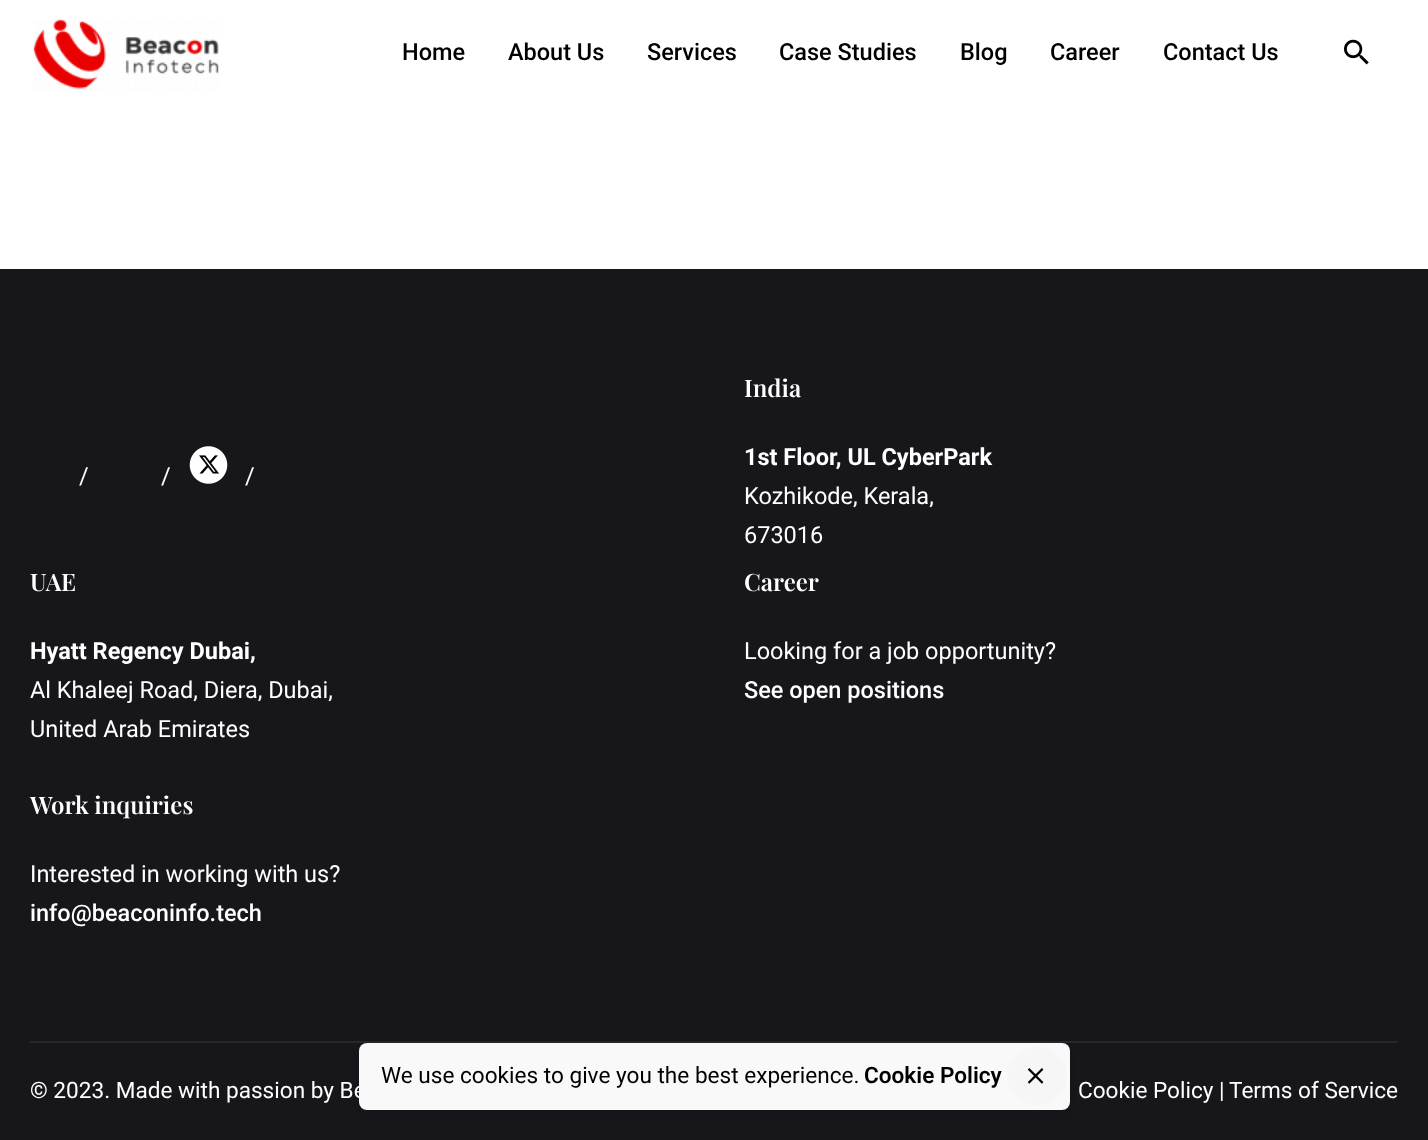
<svg xmlns="http://www.w3.org/2000/svg" width="1428" height="1140" viewBox="0 0 1428 1140">
  <style>
    .t1 { font: 500 23.5px Roboto; fill: #000; }
    .t2 { font: 23.5px Roboto; fill: #fff; }
    .t3 { font: 600 24px Playfair Display; fill: #fff; }
    .t4 { font: bold 23.5px Roboto; fill: #fff; }
    .t5 { font: 500 23.5px Roboto; fill: #fff; }
    .t6 { font: 22.6px Roboto; fill: #fff; }
    .t7 { font: 22.6px Roboto; fill: #000; }
    .t8 { font: 600 22.6px Roboto; fill: #000; }
  </style>
  <rect width="100%" height="100%" fill="#fff"/>
  <image x="33" y="19" width="186" height="71" href="images/1.png"/>
  <text x="402" y="60" class="t1">Home</text>
  <text x="508" y="60" class="t1">About Us</text>
  <text x="647" y="60" class="t1">Services</text>
  <text x="779" y="60" class="t1">Case Studies</text>
  <text x="960" y="60" class="t1">Blog</text>
  <text x="1050" y="60" class="t1">Career</text>
  <text x="1163" y="60" class="t1">Contact Us</text>
  <image x="1344" y="39" width="25" height="26" href="images/2.png"/>
  <rect x="0" y="269" width="1428" height="871" fill="#17161a"/>
  <text x="79" y="484" class="t2">/</text>
  <text x="161" y="484" class="t2">/</text>
  <image x="189" y="446" width="39" height="38" href="images/3.png"/>
  <text x="245" y="484" class="t2">/</text>
  <text x="744" y="397" class="t3">India</text>
  <text x="744" y="465" class="t4">1st Floor, UL CyberPark</text>
  <text x="744" y="504" class="t2">Kozhikode, Kerala,</text>
  <text x="744" y="543" class="t2">673016</text>
  <text x="30" y="591" class="t3">UAE</text>
  <text x="30" y="659" class="t4">Hyatt Regency Dubai,</text>
  <text x="30" y="698" class="t2">Al Khaleej Road, Diera, Dubai,</text>
  <text x="30" y="737" class="t2">United Arab Emirates</text>
  <text x="30" y="814" class="t3">Work inquiries</text>
  <text x="30" y="882" class="t2">Interested in working with us?</text>
  <text x="30" y="921" class="t5">info@beaconinfo.tech</text>
  <text x="744" y="591" class="t3">Career</text>
  <text x="744" y="659" class="t2">Looking for a job opportunity?</text>
  <text x="744" y="698" class="t5">See open positions</text>
  <rect x="30" y="1041" width="1368" height="2" fill="#28272b"/>
  <text x="30" y="1098" class="t6">© 2023. Made with passion by Be</text>
  <text x="1078" y="1098" class="t6">Cookie Policy |</text>
  <text x="1229" y="1098" class="t6">Terms of Service</text>
  <rect x="359" y="1046" width="711" height="67" rx="8" fill="#00000012" filter="blur(3px)"/>
  <rect x="359" y="1043" width="711" height="67" rx="8" fill="#f9f9f9"/>
  <text x="381" y="1083" class="t7">We use cookies to give you the best experience.</text>
  <text x="864" y="1083" class="t8">Cookie Policy</text>
  <circle cx="1037" cy="1076" r="30" fill="#f6f6f6"/>
  <image x="1027" y="1068" width="17" height="16" href="images/4.png"/>
</svg>
